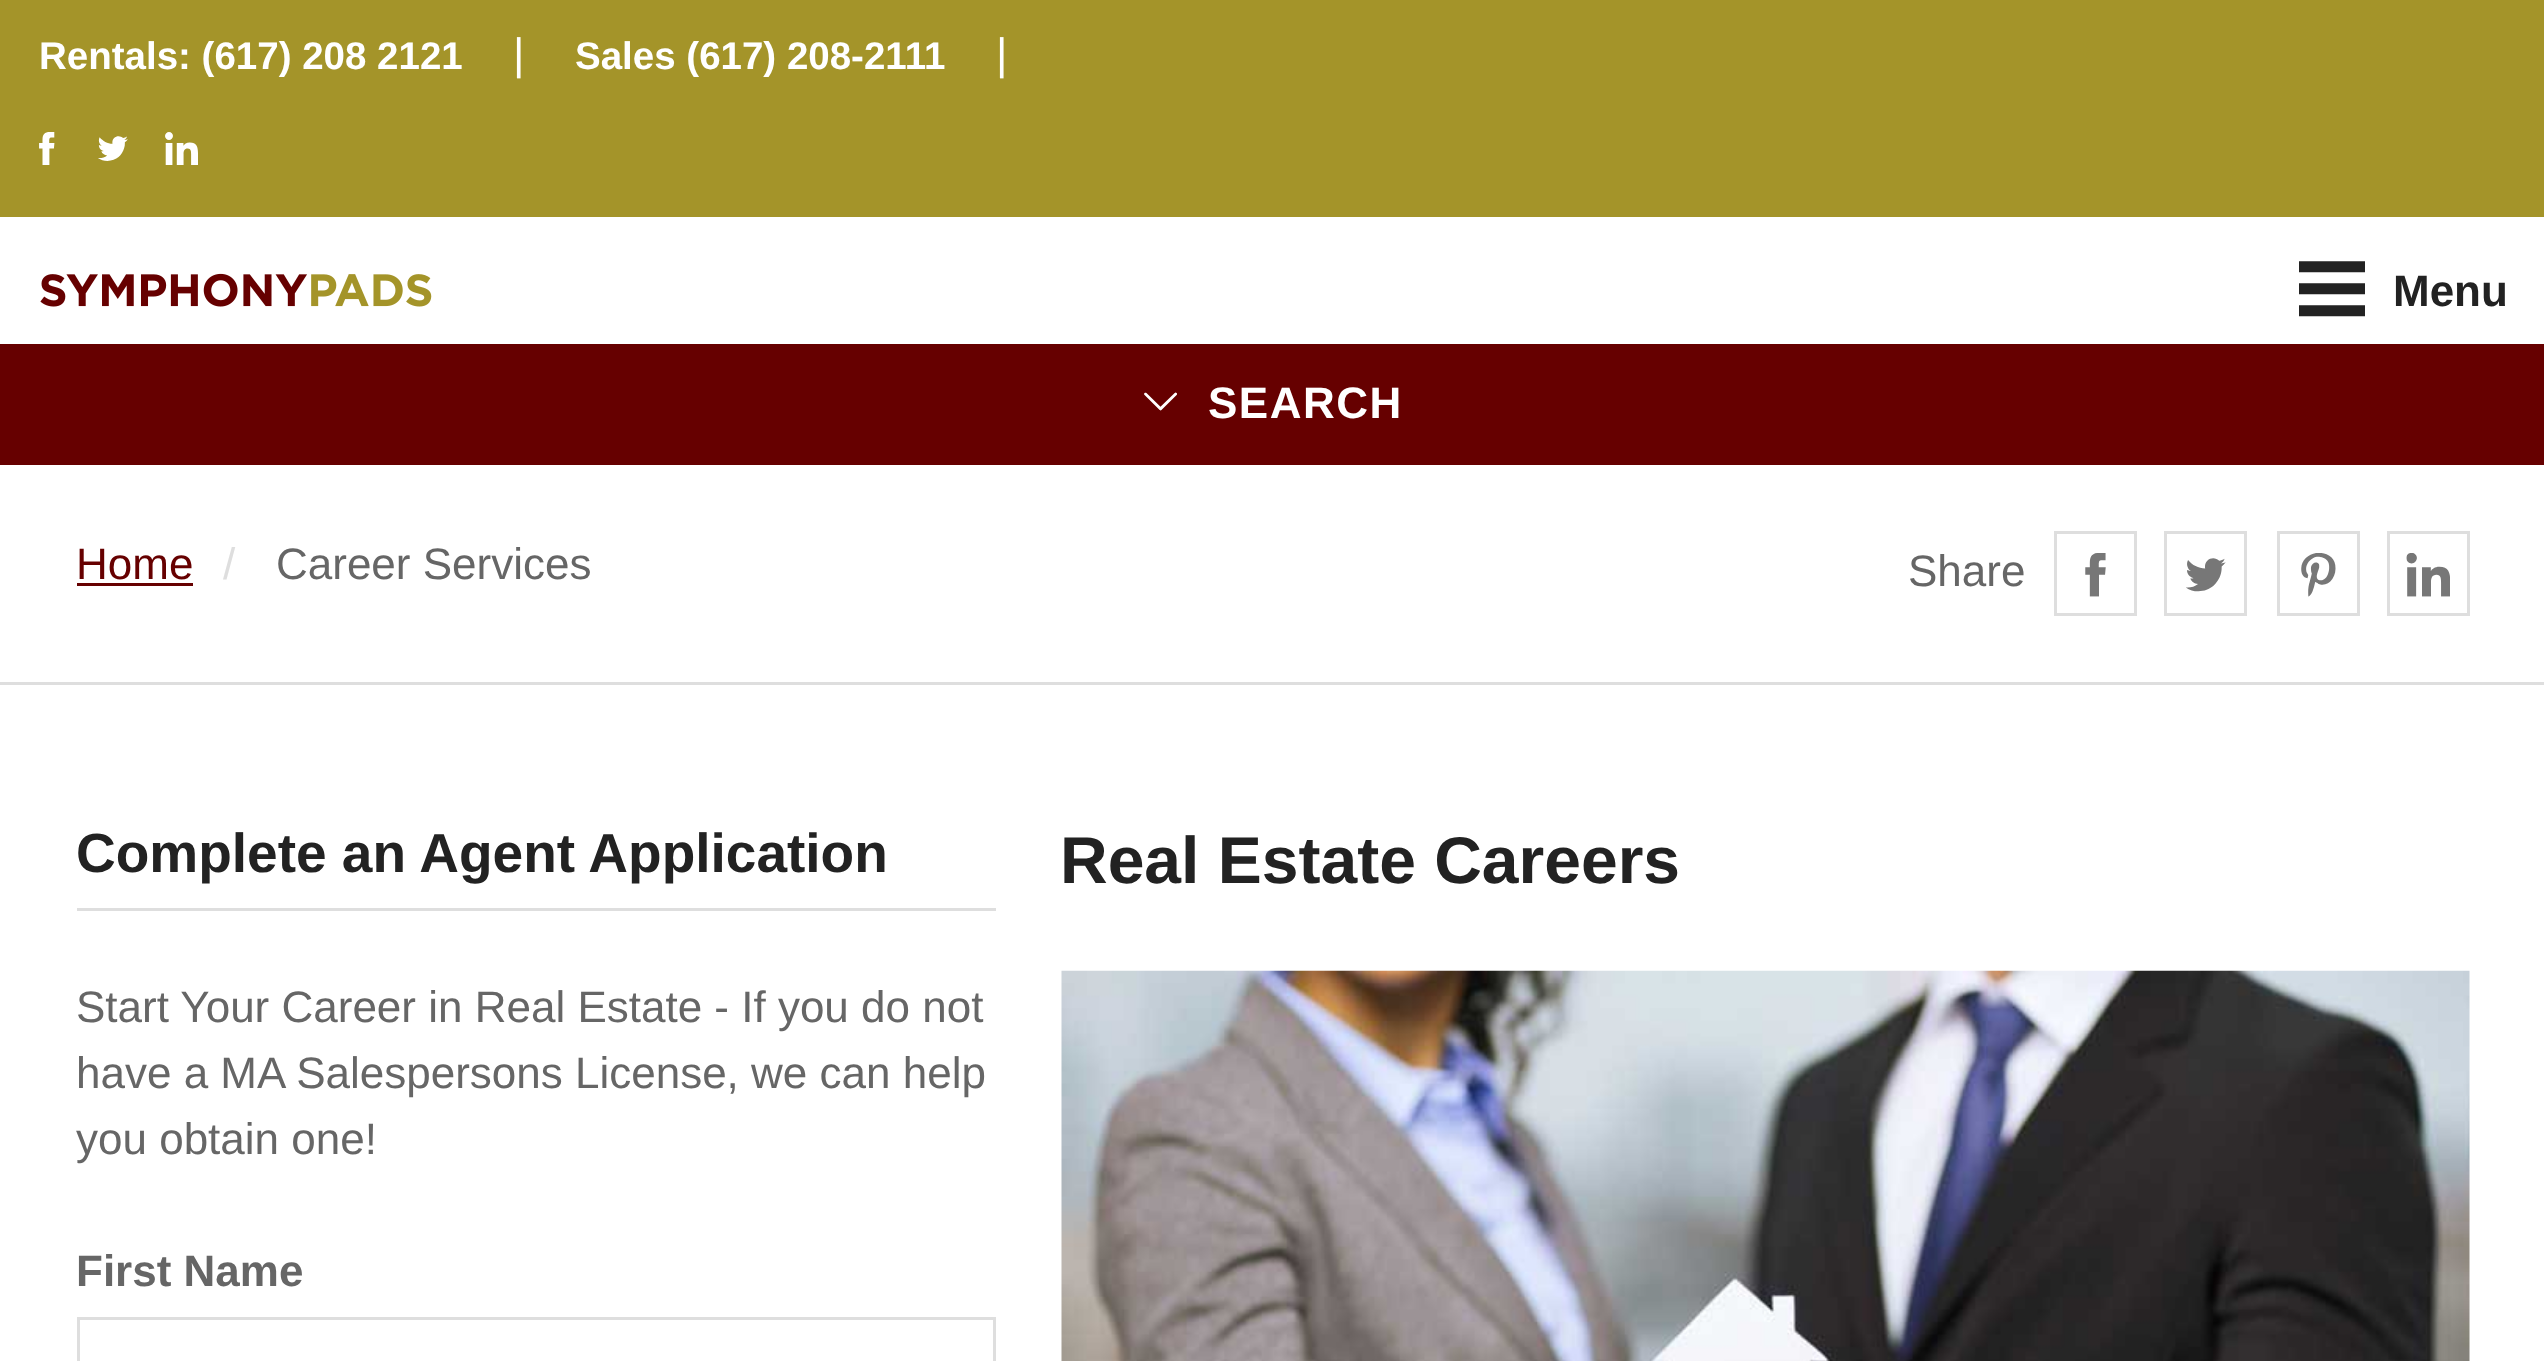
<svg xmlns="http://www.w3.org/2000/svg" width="2544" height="1361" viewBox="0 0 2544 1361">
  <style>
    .t1 { font: bold 38.5px Liberation Sans; fill: #fff; }
    .t2 { font: 44px Liberation Sans; fill: #fff; }
    .t3 { font: bold 44px Liberation Sans; fill: #222; }
    .t4 { font: bold 44px Liberation Sans; letter-spacing: 1.5px; fill: #fff; }
    .t5 { font: 44px Liberation Sans; fill: #600; }
    .t6 { font: 44px Liberation Sans; fill: #dedede; }
    .t7 { font: 44px Liberation Sans; fill: #666; }
    .t8 { font: bold 55px Liberation Sans; fill: #222; }
    .t9 { font: bold 44px Liberation Sans; fill: #666; }
    .t10 { font: bold 66px Liberation Sans; fill: #222; }
  </style>
  <rect width="100%" height="100%" fill="#fff"/>
  <rect x="0" y="0" width="2544" height="217" fill="#a49429"/>
  <text x="39" y="69" class="t1">Rentals: (617) 208 2121</text>
  <text x="513" y="69" class="t2">|</text>
  <text x="575" y="69" class="t1">Sales (617) 208-2111</text>
  <text x="996" y="69" class="t2">|</text>
  <image x="39" y="132" width="16" height="33" href="images/1.png"/>
  <image x="98" y="136" width="30" height="25" href="images/2.png"/>
  <image x="165" y="132" width="33" height="33" href="images/3.png"/>
  <image x="40" y="273" width="392" height="34" href="images/4.png"/>
  <image x="2299" y="261" width="66" height="56" href="images/5.png"/>
  <text x="2393" y="306" class="t3">Menu</text>
  <rect x="0" y="344" width="2544" height="121" fill="#600"/>
  <image x="1144" y="392" width="33" height="19" href="images/6.png"/>
  <text x="1208" y="418" class="t4">SEARCH</text>
  <rect x="0" y="682" width="2544" height="3" fill="#dedede"/>
  <text x="76" y="579" class="t5">Home</text>
  <rect x="77" y="583" width="116" height="3" fill="#600"/>
  <text x="223" y="579" class="t6">/</text>
  <text x="276" y="579" class="t7">Career Services</text>
  <text x="1908" y="586" class="t7">Share</text>
  <rect x="2055.5" y="532.5" width="80" height="82" fill="none" stroke="#dedede" stroke-width="3"/>
  <image x="2085" y="553" width="21" height="44" href="images/7.png"/>
  <rect x="2165.5" y="532.5" width="80" height="82" fill="none" stroke="#dedede" stroke-width="3"/>
  <image x="2186" y="558" width="40" height="34" href="images/8.png"/>
  <rect x="2278.5" y="532.5" width="80" height="82" fill="none" stroke="#dedede" stroke-width="3"/>
  <image x="2301" y="553" width="35" height="44" href="images/9.png"/>
  <rect x="2388.5" y="532.5" width="80" height="82" fill="none" stroke="#dedede" stroke-width="3"/>
  <image x="2406" y="553" width="44" height="44" href="images/10.png"/>
  <rect x="77" y="908" width="919" height="3" fill="#dedede"/>
  <text x="76" y="872" class="t8">Complete an Agent Application</text>
  <text x="76" y="1022" class="t7">Start Your Career in Real Estate - If you do not</text>
  <text x="76" y="1088" class="t7">have a MA Salespersons License, we can help</text>
  <text x="76" y="1154" class="t7">you obtain one!</text>
  <text x="76" y="1286" class="t9">First Name</text>
  <rect x="78.5" y="1318.5" width="916" height="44" fill="none" stroke="#dedede" stroke-width="3"/>
  <text x="1060" y="883" class="t10">Real Estate Careers</text>
  <image x="1061" y="970" width="1409" height="391" href="images/11.png"/>
</svg>
